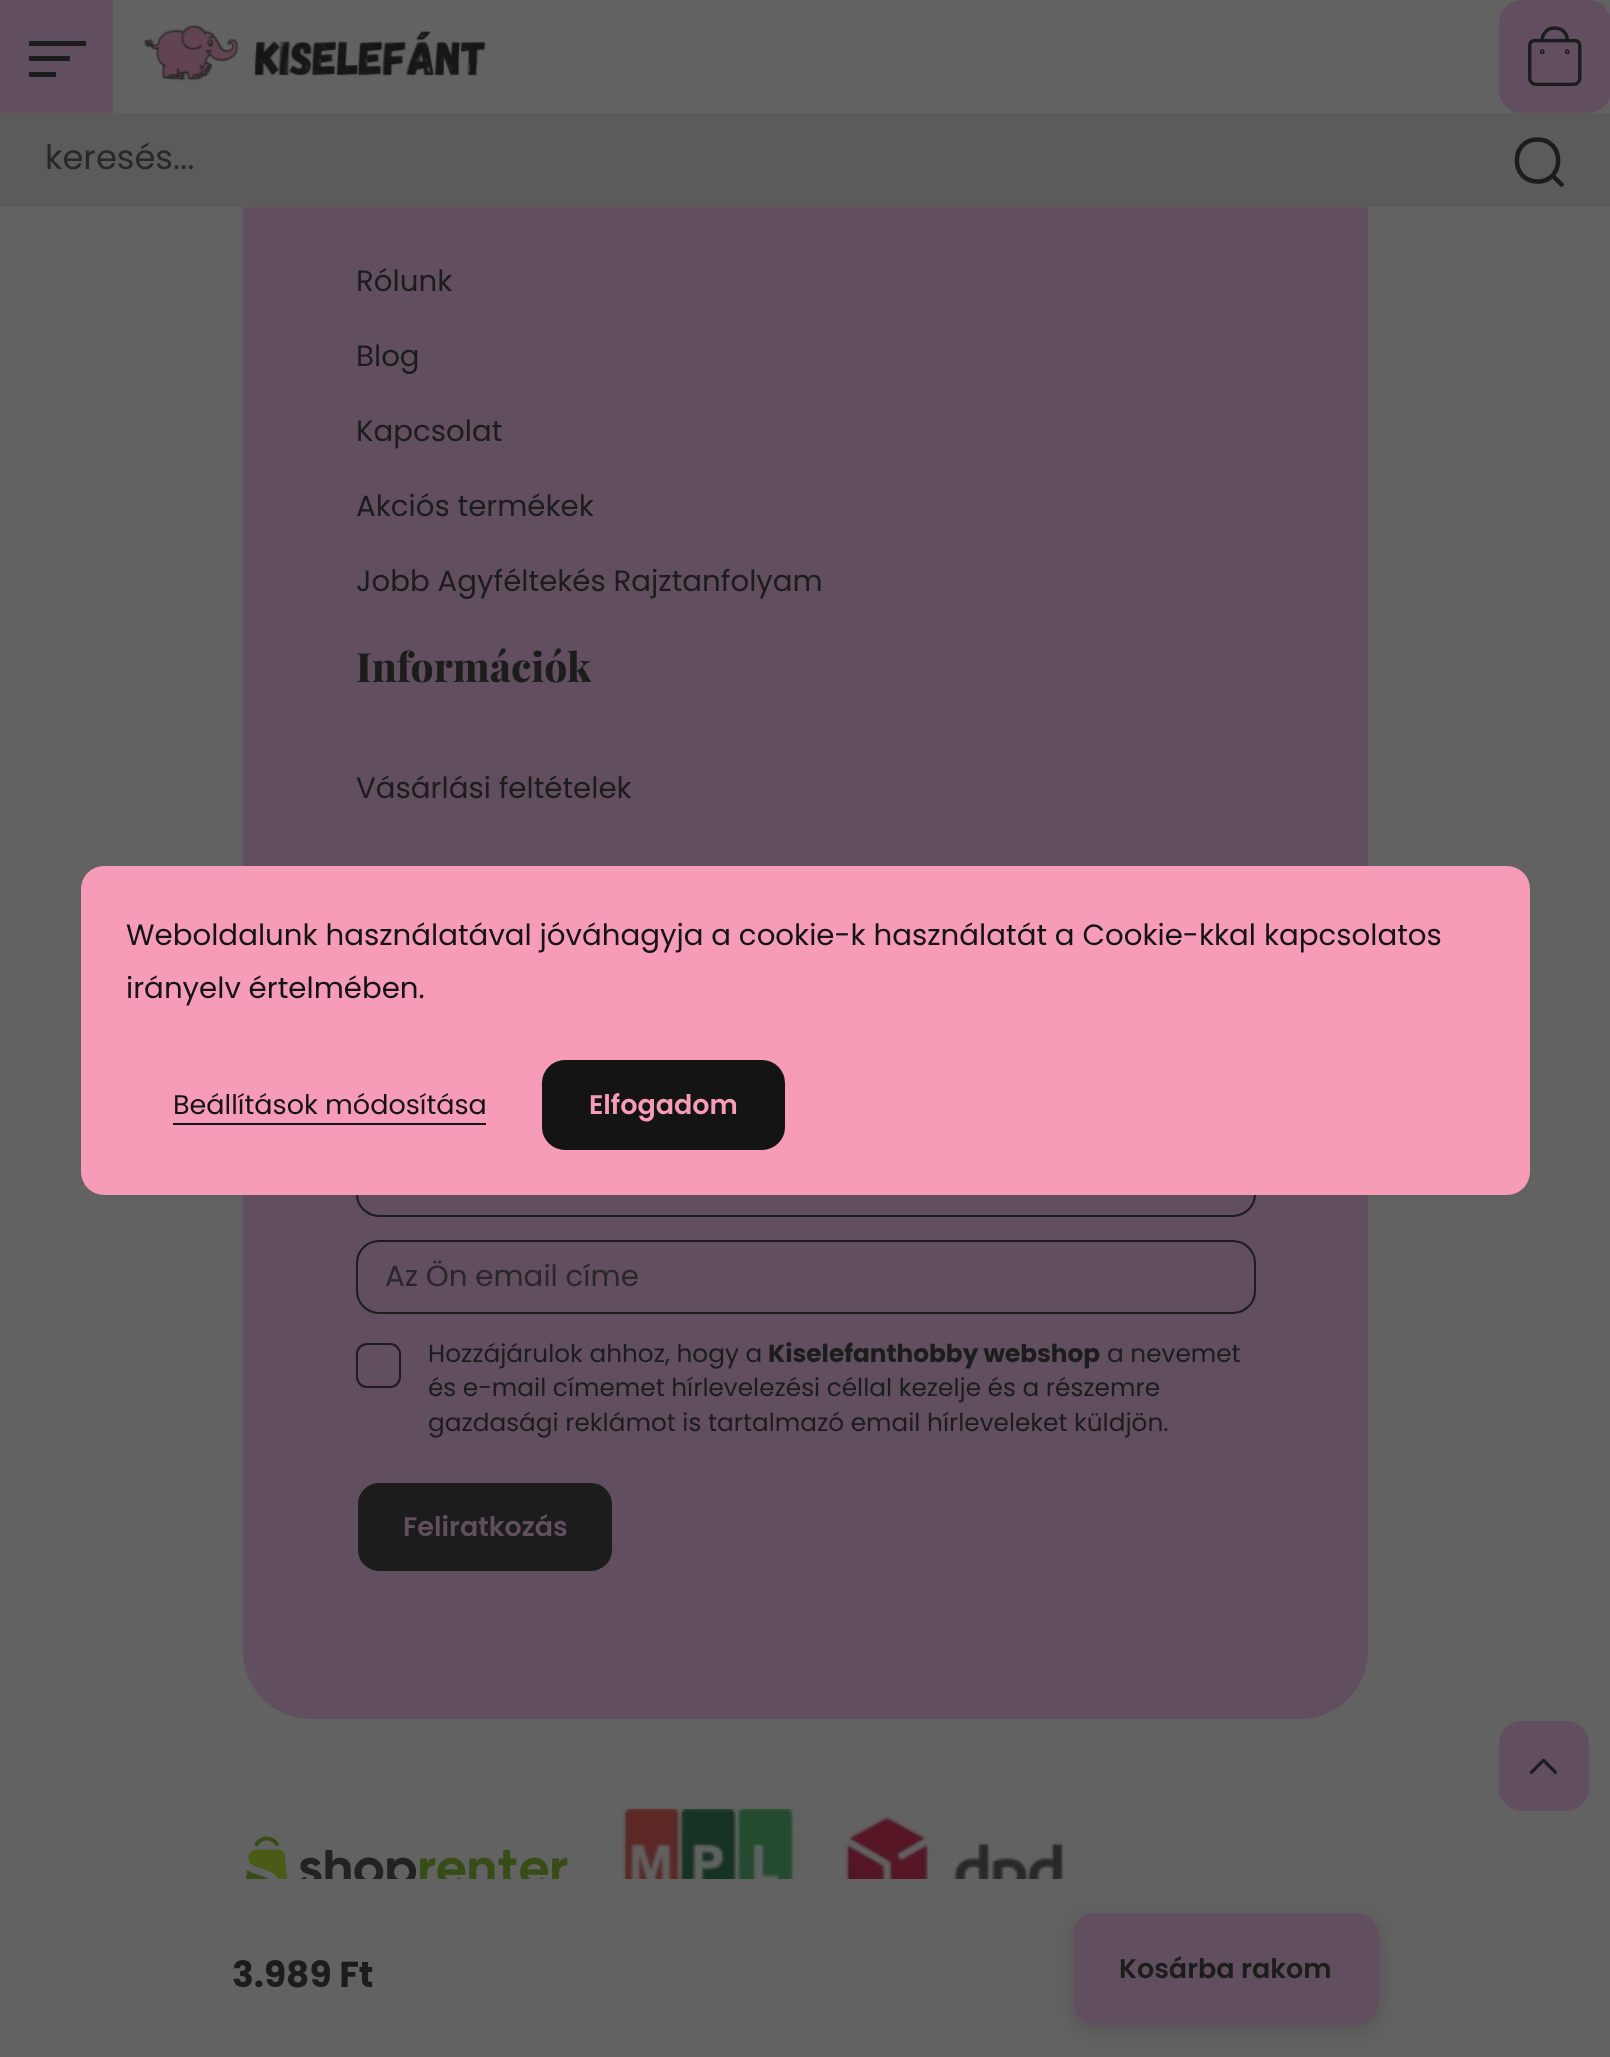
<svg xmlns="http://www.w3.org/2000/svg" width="1610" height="2057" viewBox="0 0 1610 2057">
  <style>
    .t1 { font: 33.75px Poppins; fill: #2a2629; }
    .t2 { font: 29.25px Poppins; fill: #1c1c1c; }
    .t3 { font: 800 40.5px Playfair Display; fill: #1c1c1c; }
    .t4 { font: 29.25px Poppins; fill: #2a2629; }
    .t5 { font: 24.75px Poppins; fill: #1c1c1c; }
    .t6 { font: bold 24.75px Poppins; fill: #1c1c1c; }
    .t7 { font: 600 27px Poppins; fill: #614f5f; }
    .t8 { font: bold 36px Poppins; fill: #1c1c1c; }
    .t9 { font: 600 27px Poppins; fill: #1c1c1c; }
    .t10 { font: 29.25px Poppins; fill: #141414; }
    .t11 { font: 27px Poppins; fill: #141414; }
    .t12 { font: 600 27px Poppins; fill: #f79cb6; }
  </style>
  <rect width="100%" height="100%" fill="#626262"/>
  <rect x="243" y="-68" width="1125" height="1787" rx="68" fill="#614f5f"/>
  <rect x="243" y="0" width="1125" height="113" fill="#626262"/>
  <rect x="0" y="113" width="1610" height="94" fill="#5b5b5b"/>
  <rect x="0" y="0" width="113" height="113" fill="#614f5f"/>
  <rect x="29" y="41" width="57" height="5" fill="#1c1c1c"/>
  <rect x="29" y="56" width="41" height="5" fill="#1c1c1c"/>
  <rect x="29" y="72" width="27" height="5" fill="#1c1c1c"/>
  <image x="144" y="25" width="342" height="57" href="images/1.png"/>
  <rect x="1500" y="1" width="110" height="111" rx="22" fill="#614f5f" stroke="#614f5f" stroke-width="2"/>
  <image x="1528" y="26" width="54" height="61" href="images/2.png"/>
  <text x="45" y="169" class="t1">keresés...</text>
  <path d="M1561.5 184.5L1552.5 175.5M1537.5 181.5C1510 181.5 1510 139.5 1537.5 139.5C1565 139.5 1565 181.5 1537.5 181.5Z" fill="none" stroke="#1c1c1c" stroke-width="4.5" stroke-linecap="round" stroke-linejoin="round"/>
  <text x="356" y="291" class="t2">Rólunk</text>
  <text x="356" y="366" class="t2">Blog</text>
  <text x="356" y="441" class="t2">Kapcsolat</text>
  <text x="356" y="516" class="t2">Akciós termékek</text>
  <text x="356" y="591" class="t2">Jobb Agyféltekés Rajztanfolyam</text>
  <text x="356" y="682" class="t3">Információk</text>
  <text x="356" y="798" class="t2">Vásárlási feltételek</text>
  <rect x="357" y="1142" width="898" height="74" rx="22" fill="none" stroke="#1c1c1c" stroke-width="2"/>
  <rect x="357" y="1241" width="898" height="72" rx="22" fill="none" stroke="#1c1c1c" stroke-width="2"/>
  <text x="385" y="1286" class="t4">Az Ön email címe</text>
  <rect x="357" y="1344" width="43" height="43" rx="10" fill="none" stroke="#1c1c1c" stroke-width="2"/>
  <text x="428" y="1362" class="t5">Hozzájárulok ahhoz, hogy a</text>
  <text x="768" y="1362" class="t6">Kiselefanthobby webshop</text>
  <text x="1107" y="1362" class="t5">a nevemet</text>
  <text x="428" y="1396" class="t5">és e-mail címemet hírlevelezési céllal kezelje és a részemre</text>
  <text x="428" y="1431" class="t5">gazdasági reklámot is tartalmazó email hírleveleket küldjön.</text>
  <rect x="357" y="1482" width="256" height="90" rx="22" fill="#1c1c1c" stroke="#614f5f" stroke-width="2"/>
  <text x="403" y="1536" class="t7">Feliratkozás</text>
  <image x="246" y="1836" width="322" height="43" href="images/3.png"/>
  <image x="620" y="1808" width="178" height="71" href="images/4.png"/>
  <image x="842" y="1809" width="224" height="70" href="images/5.png"/>
  <rect x="1500" y="1722" width="88" height="88" rx="22" fill="#614f5f" stroke="#614f5f" stroke-width="2"/>
  <image x="1530" y="1758" width="27" height="16" href="images/6.png"/>
  <text x="232" y="1987" class="t8">3.989 Ft</text>
  <rect x="1073" y="1917" width="306" height="113" rx="23" fill="#1c1c1c33" filter="blur(9px)"/>
  <rect x="1074" y="1914" width="304" height="110" rx="22" fill="#614f5f" stroke="#614f5f" stroke-width="2"/>
  <text x="1119" y="1978" class="t9">Kosárba rakom</text>
  <rect x="81" y="866" width="1449" height="329" rx="23" fill="#f79cb6"/>
  <text x="126" y="945" class="t10">Weboldalunk használatával jóváhagyja a cookie-k használatát a Cookie-kkal kapcsolatos</text>
  <text x="126" y="998" class="t10">irányelv értelmében.</text>
  <text x="173" y="1114" class="t11">Beállítások módosítása</text>
  <rect x="173" y="1123" width="313" height="2" fill="#141414"/>
  <rect x="543" y="1061" width="241" height="88" rx="22" fill="#141414" stroke="#141414" stroke-width="2"/>
  <text x="589" y="1114" class="t12">Elfogadom</text>
</svg>
